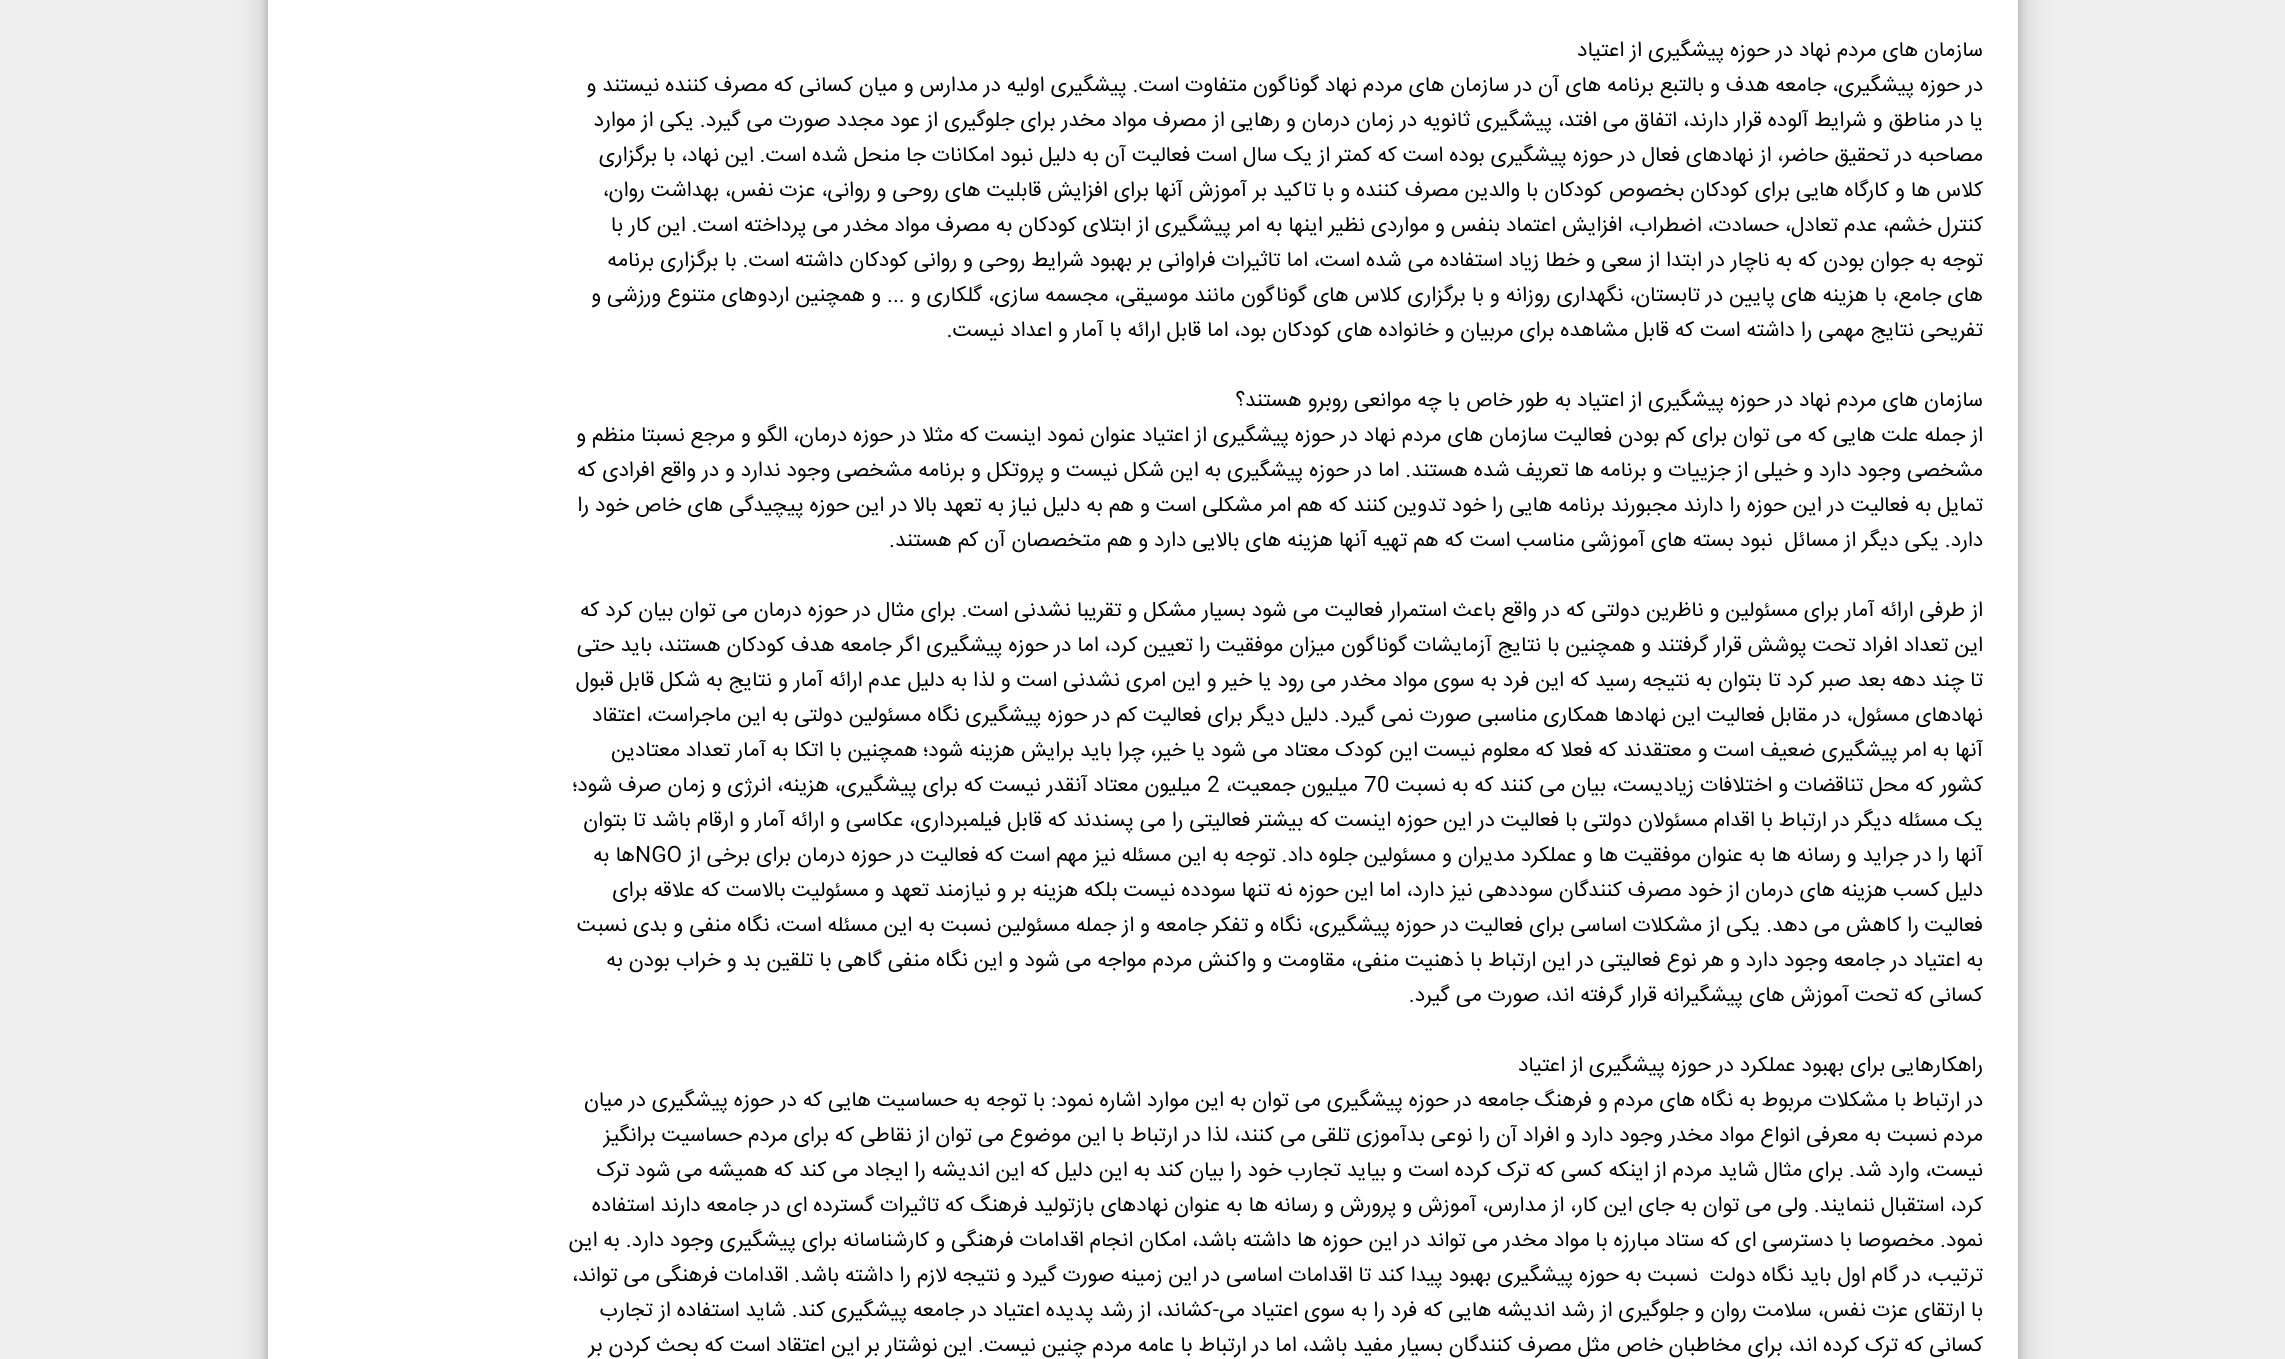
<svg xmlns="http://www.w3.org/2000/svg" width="2285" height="1359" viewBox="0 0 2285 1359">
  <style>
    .t1 { font: 21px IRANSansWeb; direction: rtl; fill: #000; }
    .t2 { font: 21px IRANSansWeb; fill: #000; }
  </style>
  <rect width="100%" height="100%" fill="#efefef"/>
  <rect x="268" y="-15" width="1750" height="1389" fill="#0000003b" filter="blur(5px)"/>
  <rect x="268" y="-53" width="1750" height="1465" fill="#00000030" filter="blur(17.5px)"/>
  <rect x="268" y="0" width="1750" height="1359" fill="#fff"/>
  <text x="1983" y="56" class="t1">سازمان های مردم نهاد در حوزه پیشگیری از اعتیاد</text>
  <text x="1983" y="91" class="t1">در حوزه پیشگیری، جامعه هدف و بالتبع برنامه های آن در سازمان های مردم نهاد گوناگون متفاوت است. پیشگیری اولیه در مدارس و میان کسانی که مصرف کننده نیستند و</text>
  <text x="1983" y="126" class="t1">یا در مناطق و شرایط آلوده قرار دارند، اتفاق می افتد، پیشگیری ثانویه در زمان درمان و رهایی از مصرف مواد مخدر برای جلوگیری از عود مجدد صورت می گیرد. یکی از موارد</text>
  <text x="1983" y="161" class="t1">مصاحبه در تحقیق حاضر، از نهادهای فعال در حوزه پیشگیری بوده است که کمتر از یک سال است فعالیت آن به دلیل نبود امکانات جا منحل شده است. این نهاد، با برگزاری</text>
  <text x="1983" y="196" class="t1">کلاس ها و کارگاه هایی برای کودکان بخصوص کودکان با والدین مصرف کننده و با تاکید بر آموزش آنها برای افزایش قابلیت های روحی و روانی، عزت نفس، بهداشت روان،</text>
  <text x="1983" y="231" class="t1">کنترل خشم، عدم تعادل، حسادت، اضطراب، افزایش اعتماد بنفس و مواردی نظیر اینها به امر پیشگیری از ابتلای کودکان به مصرف مواد مخدر می پرداخته است. این کار با</text>
  <text x="1983" y="266" class="t1">توجه به جوان بودن که به ناچار در ابتدا از سعی و خطا زیاد استفاده می شده است، اما تاثیرات فراوانی بر بهبود شرایط روحی و روانی کودکان داشته است. با برگزاری برنامه</text>
  <text x="1983" y="301" class="t1">های جامع، با هزینه های پایین در تابستان، نگهداری روزانه و با برگزاری کلاس های گوناگون مانند موسیقی، مجسمه سازی، گلکاری و ... و همچنین اردوهای متنوع ورزشی و</text>
  <text x="1983" y="336" class="t1">تفریحی نتایج مهمی را داشته است که قابل مشاهده برای مربیان و خانواده های کودکان بود، اما قابل ارائه با آمار و اعداد نیست.</text>
  <text x="1983" y="406" class="t1">سازمان های مردم نهاد در حوزه پیشگیری از اعتیاد به طور خاص با چه موانعی روبرو هستند؟</text>
  <text x="1983" y="441" class="t1">از جمله علت هایی که می توان برای کم بودن فعالیت سازمان های مردم نهاد در حوزه پیشگیری از اعتیاد عنوان نمود اینست که مثلا در حوزه درمان، الگو و مرجع نسبتا منظم و</text>
  <text x="1983" y="476" class="t1">مشخصی وجود دارد و خیلی از جزییات و برنامه ها تعریف شده هستند. اما در حوزه پیشگیری به این شکل نیست و پروتکل و برنامه مشخصی وجود ندارد و در واقع افرادی که</text>
  <text x="1983" y="511" class="t1">تمایل به فعالیت در این حوزه را دارند مجبورند برنامه هایی را خود تدوین کنند که هم امر مشکلی است و هم به دلیل نیاز به تعهد بالا در این حوزه پیچیدگی های خاص خود را</text>
  <text x="1983" y="546" class="t1" xml:space="preserve">دارد. یکی دیگر از مسائل  نبود بسته های آموزشی مناسب است که هم تهیه آنها هزینه های بالایی دارد و هم متخصصان آن کم هستند.</text>
  <text x="1983" y="616" class="t1">از طرفی ارائه آمار برای مسئولین و ناظرین دولتی که در واقع باعث استمرار فعالیت می شود بسیار مشکل و تقریبا نشدنی است. برای مثال در حوزه درمان می توان بیان کرد که</text>
  <text x="1983" y="651" class="t1">این تعداد افراد تحت پوشش قرار گرفتند و همچنین با نتایج آزمایشات گوناگون میزان موفقیت را تعیین کرد، اما در حوزه پیشگیری اگر جامعه هدف کودکان هستند، باید حتی</text>
  <text x="1983" y="686" class="t1">تا چند دهه بعد صبر کرد تا بتوان به نتیجه رسید که این فرد به سوی مواد مخدر می رود یا خیر و این امری نشدنی است و لذا به دلیل عدم ارائه آمار و نتایج به شکل قابل قبول</text>
  <text x="1983" y="721" class="t1">نهادهای مسئول، در مقابل فعالیت این نهادها همکاری مناسبی صورت نمی گیرد. دلیل دیگر برای فعالیت کم در حوزه پیشگیری نگاه مسئولین دولتی به این ماجراست، اعتقاد</text>
  <text x="1983" y="756" class="t1">آنها به امر پیشگیری ضعیف است و معتقدند که فعلا که معلوم نیست این کودک معتاد می شود یا خیر، چرا باید برایش هزینه شود؛ همچنین با اتکا به آمار تعداد معتادین</text>
  <text x="1983" y="791" class="t1">کشور که محل تناقضات و اختلافات زیادیست، بیان می کنند که به نسبت</text>
  <text x="1364" y="791" class="t2">70</text>
  <text x="1358" y="791" class="t1">میلیون جمعیت،</text>
  <text x="1207" y="791" class="t2">2</text>
  <text x="1201" y="791" class="t1">میلیون معتاد آنقدر نیست که برای پیشگیری، هزینه، انرژی و زمان صرف شود؛</text>
  <text x="1983" y="826" class="t1">یک مسئله دیگر در ارتباط با اقدام مسئولان دولتی با فعالیت در این حوزه اینست که بیشتر فعالیتی را می پسندند که قابل فیلمبرداری، عکاسی و ارائه آمار و ارقام باشد تا بتوان</text>
  <text x="1983" y="861" class="t1">آنها را در جراید و رسانه ها به عنوان موفقیت ها و عملکرد مدیران و مسئولین جلوه داد. توجه به این مسئله نیز مهم است که فعالیت در حوزه درمان برای برخی از</text>
  <text x="635" y="861" class="t2">NGO</text>
  <text x="635" y="861" class="t1">ها به</text>
  <text x="1983" y="896" class="t1">دلیل کسب هزینه های درمان از خود مصرف کنندگان سوددهی نیز دارد، اما این حوزه نه تنها سودده نیست بلکه هزینه بر و نیازمند تعهد و مسئولیت بالاست که علاقه برای</text>
  <text x="1983" y="931" class="t1">فعالیت را کاهش می دهد. یکی از مشکلات اساسی برای فعالیت در حوزه پیشگیری، نگاه و تفکر جامعه و از جمله مسئولین نسبت به این مسئله است، نگاه منفی و بدی نسبت</text>
  <text x="1983" y="966" class="t1">به اعتیاد در جامعه وجود دارد و هر نوع فعالیتی در این ارتباط با ذهنیت منفی، مقاومت و واکنش مردم مواجه می شود و این نگاه منفی گاهی با تلقین بد و خراب بودن به</text>
  <text x="1983" y="1001" class="t1">کسانی که تحت آموزش های پیشگیرانه قرار گرفته اند، صورت می گیرد.</text>
  <text x="1983" y="1071" class="t1">راهکارهایی برای بهبود عملکرد در حوزه پیشگیری از اعتیاد</text>
  <text x="1983" y="1106" class="t1">در ارتباط با مشکلات مربوط به نگاه های مردم و فرهنگ جامعه در حوزه پیشگیری می توان به این موارد اشاره نمود: با توجه به حساسیت هایی که در حوزه پیشگیری در میان</text>
  <text x="1983" y="1141" class="t1">مردم نسبت به معرفی انواع مواد مخدر وجود دارد و افراد آن را نوعی بدآموزی تلقی می کنند، لذا در ارتباط با این موضوع می توان از نقاطی که برای مردم حساسیت برانگیز</text>
  <text x="1983" y="1176" class="t1">نیست، وارد شد. برای مثال شاید مردم از اینکه کسی که ترک کرده است و بیاید تجارب خود را بیان کند به این دلیل که این اندیشه را ایجاد می کند که همیشه می شود ترک</text>
  <text x="1983" y="1211" class="t1">کرد، استقبال ننمایند. ولی می توان به جای این کار، از مدارس، آموزش و پرورش و رسانه ها به عنوان نهادهای بازتولید فرهنگ که تاثیرات گسترده ای در جامعه دارند استفاده</text>
  <text x="1983" y="1246" class="t1">نمود. مخصوصا با دسترسی ای که ستاد مبارزه با مواد مخدر می تواند در این حوزه ها داشته باشد، امکان انجام اقدامات فرهنگی و کارشناسانه برای پیشگیری وجود دارد. به این</text>
  <text x="1983" y="1281" class="t1" xml:space="preserve">ترتیب، در گام اول باید نگاه دولت  نسبت به حوزه پیشگیری بهبود پیدا کند تا اقدامات اساسی در این زمینه صورت گیرد و نتیجه لازم را داشته باشد. اقدامات فرهنگی می تواند،</text>
  <text x="1983" y="1316" class="t1">با ارتقای عزت نفس، سلامت روان و جلوگیری از رشد اندیشه هایی که فرد را به سوی اعتیاد می-کشاند، از رشد پدیده اعتیاد در جامعه پیشگیری کند. شاید استفاده از تجارب</text>
  <text x="1983" y="1351" class="t1">کسانی که ترک کرده اند، برای مخاطبان خاص مثل مصرف کنندگان بسیار مفید باشد، اما در ارتباط با عامه مردم چنین نیست. این نوشتار بر این اعتقاد است که بحث کردن بر</text>
</svg>
